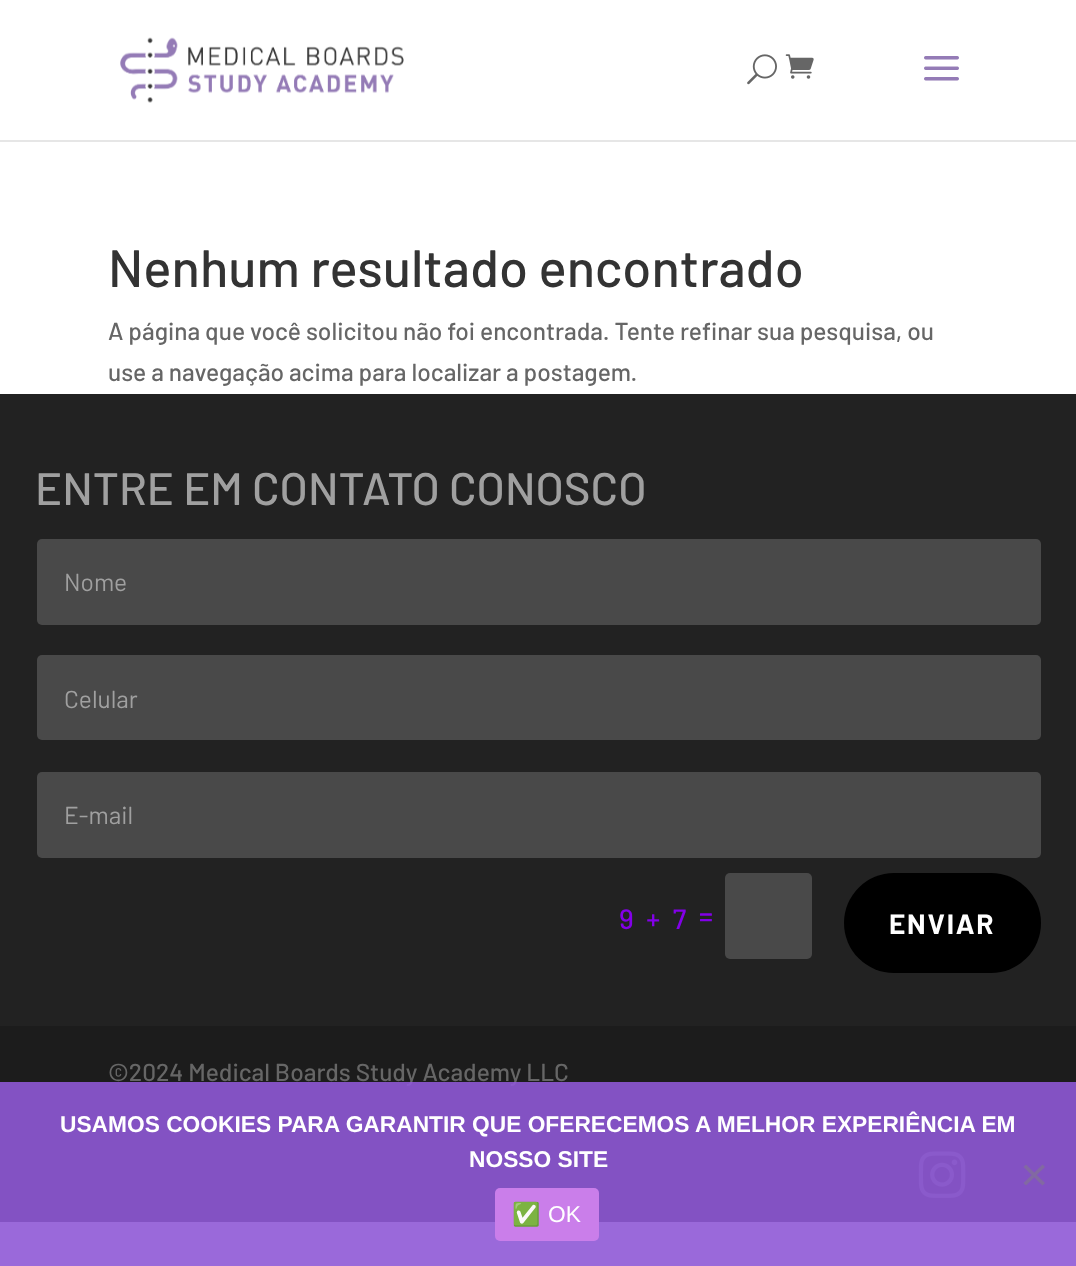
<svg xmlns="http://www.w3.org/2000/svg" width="1076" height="1266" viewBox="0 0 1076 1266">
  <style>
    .t1 { font: 500 52.5px Barlow; fill: #333; }
    .t2 { font: 500 24.5px Barlow; fill: #666; }
    .t3 { font: 500 45.5px Barlow; fill: #a0a0a0; }
    .t4 { font: 24.5px Barlow; fill: #a0a0a0; }
    .t5 { font: 500 28px Barlow; letter-spacing: 3.5px; fill: #8300e9; }
    .t6 { font: bold 28px Barlow; letter-spacing: 1.75px; fill: #fff; }
    .t7 { font: bold 22.75px Liberation Sans; fill: #fff; }
    .t8 { font: 22.75px Noto Color Emoji; fill: #fff; }
    .t9 { font: 22.75px Liberation Sans; fill: #fff; }
  </style>
  <rect width="100%" height="100%" fill="#fff"/>
  <rect x="0" y="140" width="1076" height="2" fill="#e6e6e6"/>
  <image x="120" y="37" width="284" height="66" href="images/1.png"/>
  <image x="747" y="54" width="30" height="31" href="images/2.png"/>
  <image x="785" y="54" width="29" height="25" href="images/3.png"/>
  <image x="924" y="56" width="35" height="25" href="images/4.png"/>
  <text x="108" y="287" class="t1">Nenhum resultado encontrado</text>
  <text x="108" y="340" class="t2">A página que você solicitou não foi encontrada. Tente refinar sua pesquisa, ou</text>
  <text x="108" y="381" class="t2">use a navegação acima para localizar a postagem.</text>
  <rect x="0" y="394" width="1076" height="632" fill="#222"/>
  <text x="35" y="505" class="t3">ENTRE EM CONTATO CONOSCO</text>
  <rect x="37" y="539" width="1004" height="86" rx="5" fill="#494949"/>
  <text x="64" y="591" class="t4">Nome</text>
  <rect x="37" y="655" width="1004" height="85" rx="5" fill="#494949"/>
  <text x="64" y="708" class="t4">Celular</text>
  <rect x="37" y="772" width="1004" height="86" rx="5" fill="#494949"/>
  <text x="64" y="824" class="t4">E-mail</text>
  <text x="619" y="929" class="t5">9 + 7</text>
  <text x="699" y="926" class="t5">=</text>
  <rect x="725" y="873" width="87" height="86" rx="5" fill="#494949"/>
  <rect x="844" y="873" width="197" height="100" rx="50" fill="#000"/>
  <text x="889" y="934" class="t6">ENVIAR</text>
  <rect x="0" y="1026" width="1076" height="196" fill="#1c1c1c"/>
  <text x="108" y="1081" class="t2">©2024 Medical Boards Study Academy LLC</text>
  <image x="918" y="1151" width="48" height="47" href="images/5.png"/>
  <rect x="0" y="1082" width="1076" height="184" fill="#8f59d6e6"/>
  <text x="60" y="1132" class="t7">USAMOS COOKIES PARA GARANTIR QUE OFERECEMOS A MELHOR EXPERIÊNCIA EM</text>
  <text x="469" y="1167" class="t7">NOSSO SITE</text>
  <path d="M1042.5 1164.5L1045 1167L1026 1185.5L1023.5 1183Z" fill="#8269a2"/>
  <path d="M1023.5 1167L1026 1164.5L1045 1183L1042.5 1185.5Z" fill="#8269a2"/>
  <rect x="495" y="1188" width="104" height="53" rx="5" fill="#ca7eea"/>
  <text x="512" y="1222" class="t8">✅</text>
  <text x="548" y="1222" class="t9">OK</text>
</svg>
